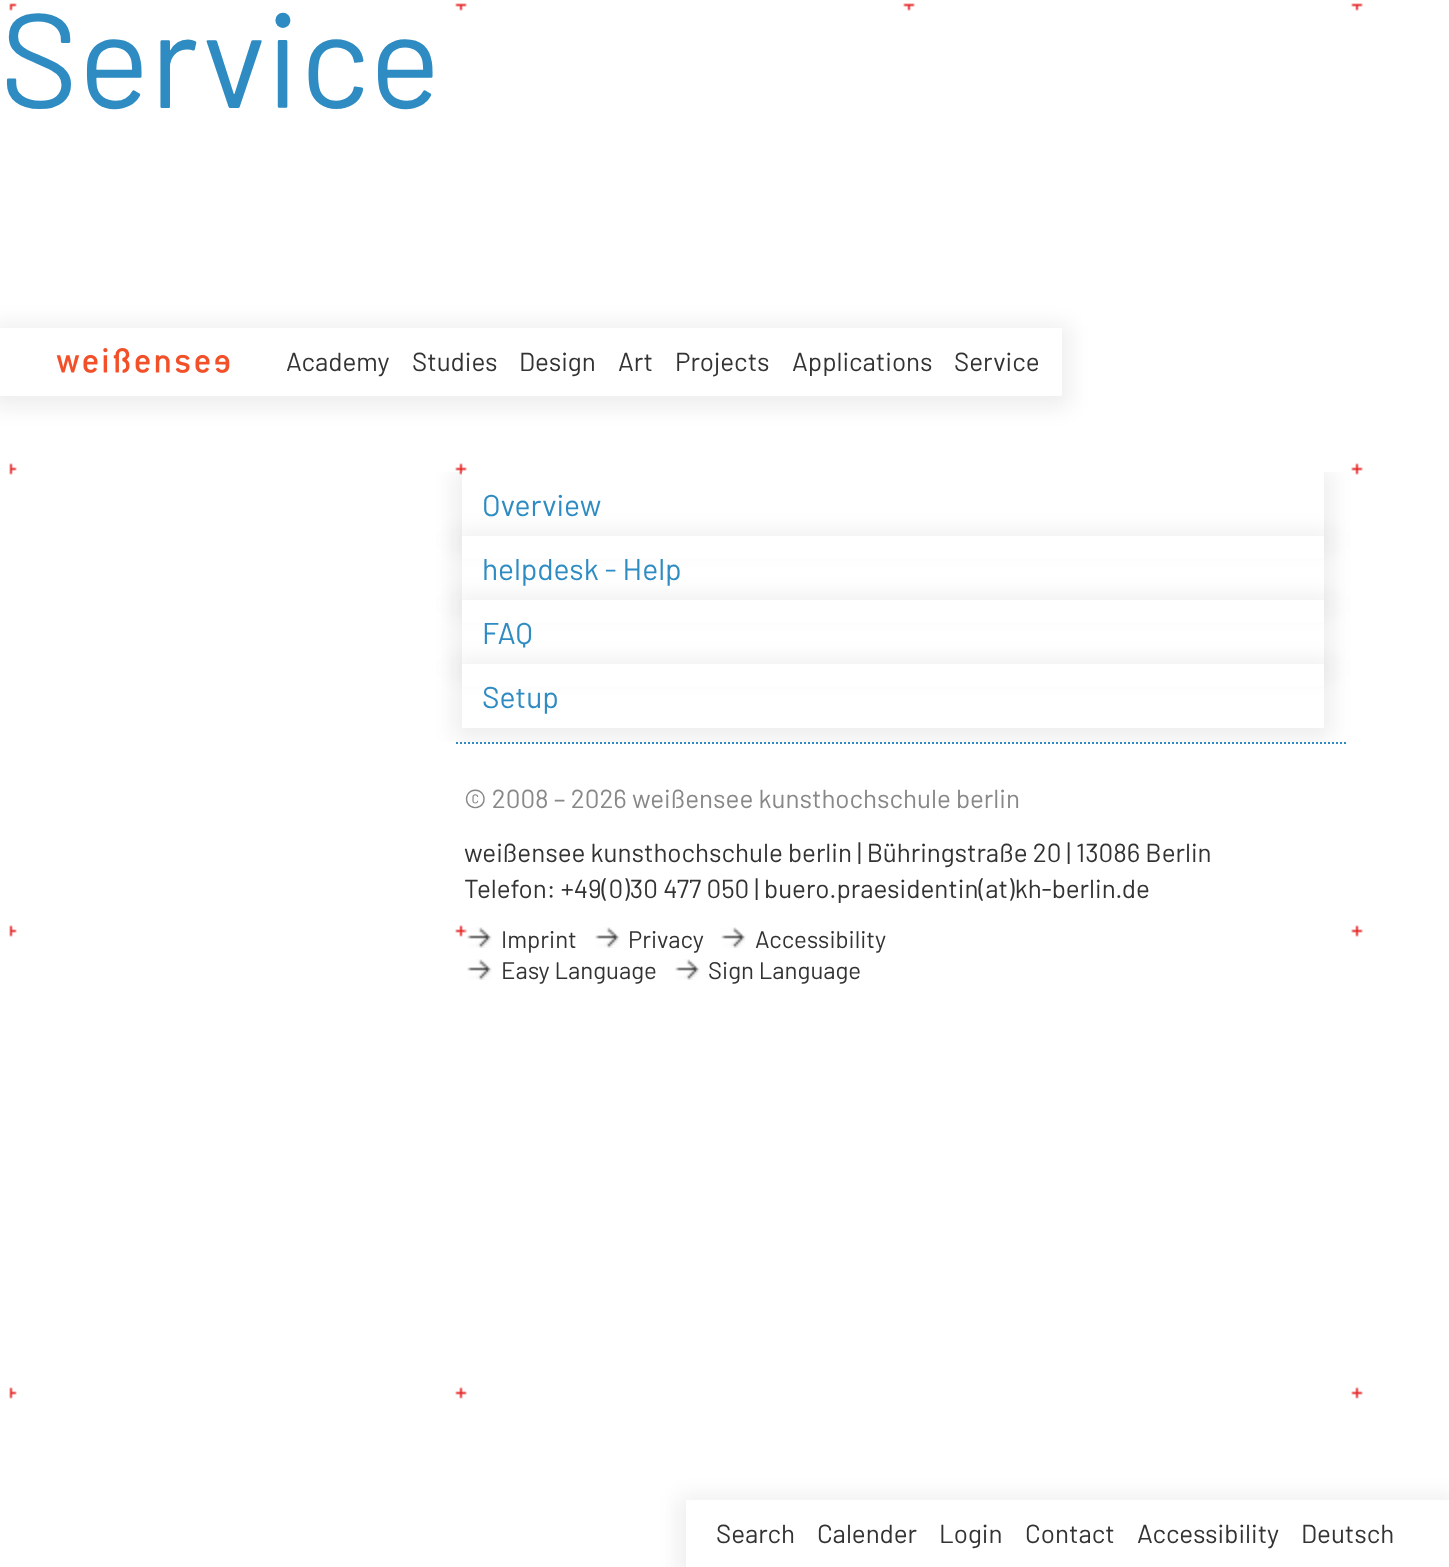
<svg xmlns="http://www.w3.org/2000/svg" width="1449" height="1567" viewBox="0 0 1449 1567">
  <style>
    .t1 { font: 134px Barlow; fill: #2f8cc3; }
    .t2 { font: 30px Barlow; fill: #2f8cc3; }
    .t3 { font: 26px Barlow; fill: #333; }
    .t4 { font: 26px Barlow; fill: #888; }
    .t5 { font: 24px Barlow; fill: #333; }
  </style>
  <defs>
    <clipPath id="clip1"><rect x="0" y="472" width="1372" height="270"/></clipPath>
    <clipPath id="clip2"><path d="M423 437H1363V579H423ZM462 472H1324V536H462Z" clip-rule="evenodd"/></clipPath>
    <clipPath id="clip3"><path d="M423 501H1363V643H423ZM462 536H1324V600H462Z" clip-rule="evenodd"/></clipPath>
    <clipPath id="clip4"><path d="M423 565H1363V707H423ZM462 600H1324V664H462Z" clip-rule="evenodd"/></clipPath>
    <clipPath id="clip5"><path d="M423 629H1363V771H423ZM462 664H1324V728H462Z" clip-rule="evenodd"/></clipPath>
    <clipPath id="clip6"><path d="M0 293H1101V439H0ZM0 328H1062V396H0Z" clip-rule="evenodd"/></clipPath>
    <clipPath id="clip7"><path d="M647 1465H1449V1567H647ZM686 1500H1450V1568H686Z" clip-rule="evenodd"/></clipPath>
  </defs>
  <rect width="100%" height="100%" fill="#fff"/>
  <image x="9" y="3" width="1354" height="1396" href="images/1.png"/>
  <text x="0" y="108" class="t1">Service</text>
  <g clip-path="url(#clip1)">
    <g clip-path="url(#clip2)">
      <rect x="454" y="468" width="878" height="80" fill="#12121212" filter="blur(10px)"/>
    </g>
  </g>
  <rect x="462" y="472" width="1" height="3" fill="#fffffff5"/>
  <g clip-path="url(#clip3)">
    <rect x="454" y="532" width="878" height="80" fill="#12121212" filter="blur(10px)"/>
  </g>
  <text x="482" y="516" class="t2">Overview</text>
  <rect x="462" y="536" width="862" height="22" fill="#fffffff5"/>
  <g clip-path="url(#clip4)">
    <rect x="454" y="596" width="878" height="80" fill="#12121212" filter="blur(10px)"/>
  </g>
  <text x="482" y="580" class="t2">helpdesk - Help</text>
  <rect x="462" y="600" width="862" height="22" fill="#fffffff5"/>
  <path d="M456 743H1346" fill="none" stroke="#2f8cc3" stroke-width="2" stroke-dasharray="2 2"/>
  <g clip-path="url(#clip1)">
    <g clip-path="url(#clip5)">
      <rect x="454" y="660" width="878" height="80" fill="#12121212" filter="blur(10px)"/>
    </g>
  </g>
  <text x="482" y="644" class="t2">FAQ</text>
  <rect x="462" y="664" width="862" height="22" fill="#fffffff5"/>
  <text x="482" y="708" class="t2">Setup</text>
  <g clip-path="url(#clip6)">
    <rect x="-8" y="324" width="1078" height="84" fill="#12121212" filter="blur(10px)"/>
  </g>
  <image x="56" y="348" width="174" height="25" href="images/2.png"/>
  <text x="286" y="371" class="t3">Academy</text>
  <text x="412" y="371" class="t3">Studies</text>
  <text x="519" y="371" class="t3">Design</text>
  <text x="618" y="371" class="t3">Art</text>
  <text x="675" y="371" class="t3">Projects</text>
  <text x="792" y="371" class="t3">Applications</text>
  <text x="954" y="371" class="t3">Service</text>
  <g clip-path="url(#clip7)">
    <rect x="678" y="1496" width="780" height="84" fill="#12121212" filter="blur(10px)"/>
  </g>
  <text x="716" y="1543" class="t3">Search</text>
  <text x="817" y="1543" class="t3">Calender</text>
  <text x="939" y="1543" class="t3">Login</text>
  <text x="1025" y="1543" class="t3">Contact</text>
  <text x="1137" y="1543" class="t3">Accessibility</text>
  <text x="1301" y="1543" class="t3">Deutsch</text>
  <text x="464" y="808" class="t4">© 2008 – 2026 weißensee kunsthochschule berlin</text>
  <text x="464" y="862" class="t3">weißensee kunsthochschule berlin | Bühringstraße 20 | 13086 Berlin</text>
  <text x="464" y="898" class="t3">Telefon: +49(0)30 477 050 | buero.praesidentin(at)kh-berlin.de</text>
  <image x="464" y="927" width="28" height="21" href="images/3.png"/>
  <text x="501" y="948" class="t5">Imprint</text>
  <image x="595" y="927" width="25" height="21" href="images/4.png"/>
  <text x="628" y="948" class="t5">Privacy</text>
  <image x="721" y="927" width="25" height="21" href="images/4.png"/>
  <text x="755" y="948" class="t5">Accessibility</text>
  <image x="467" y="959" width="25" height="21" href="images/4.png"/>
  <text x="501" y="979" class="t5">Easy Language</text>
  <image x="675" y="959" width="25" height="21" href="images/4.png"/>
  <text x="708" y="979" class="t5">Sign Language</text>
</svg>
